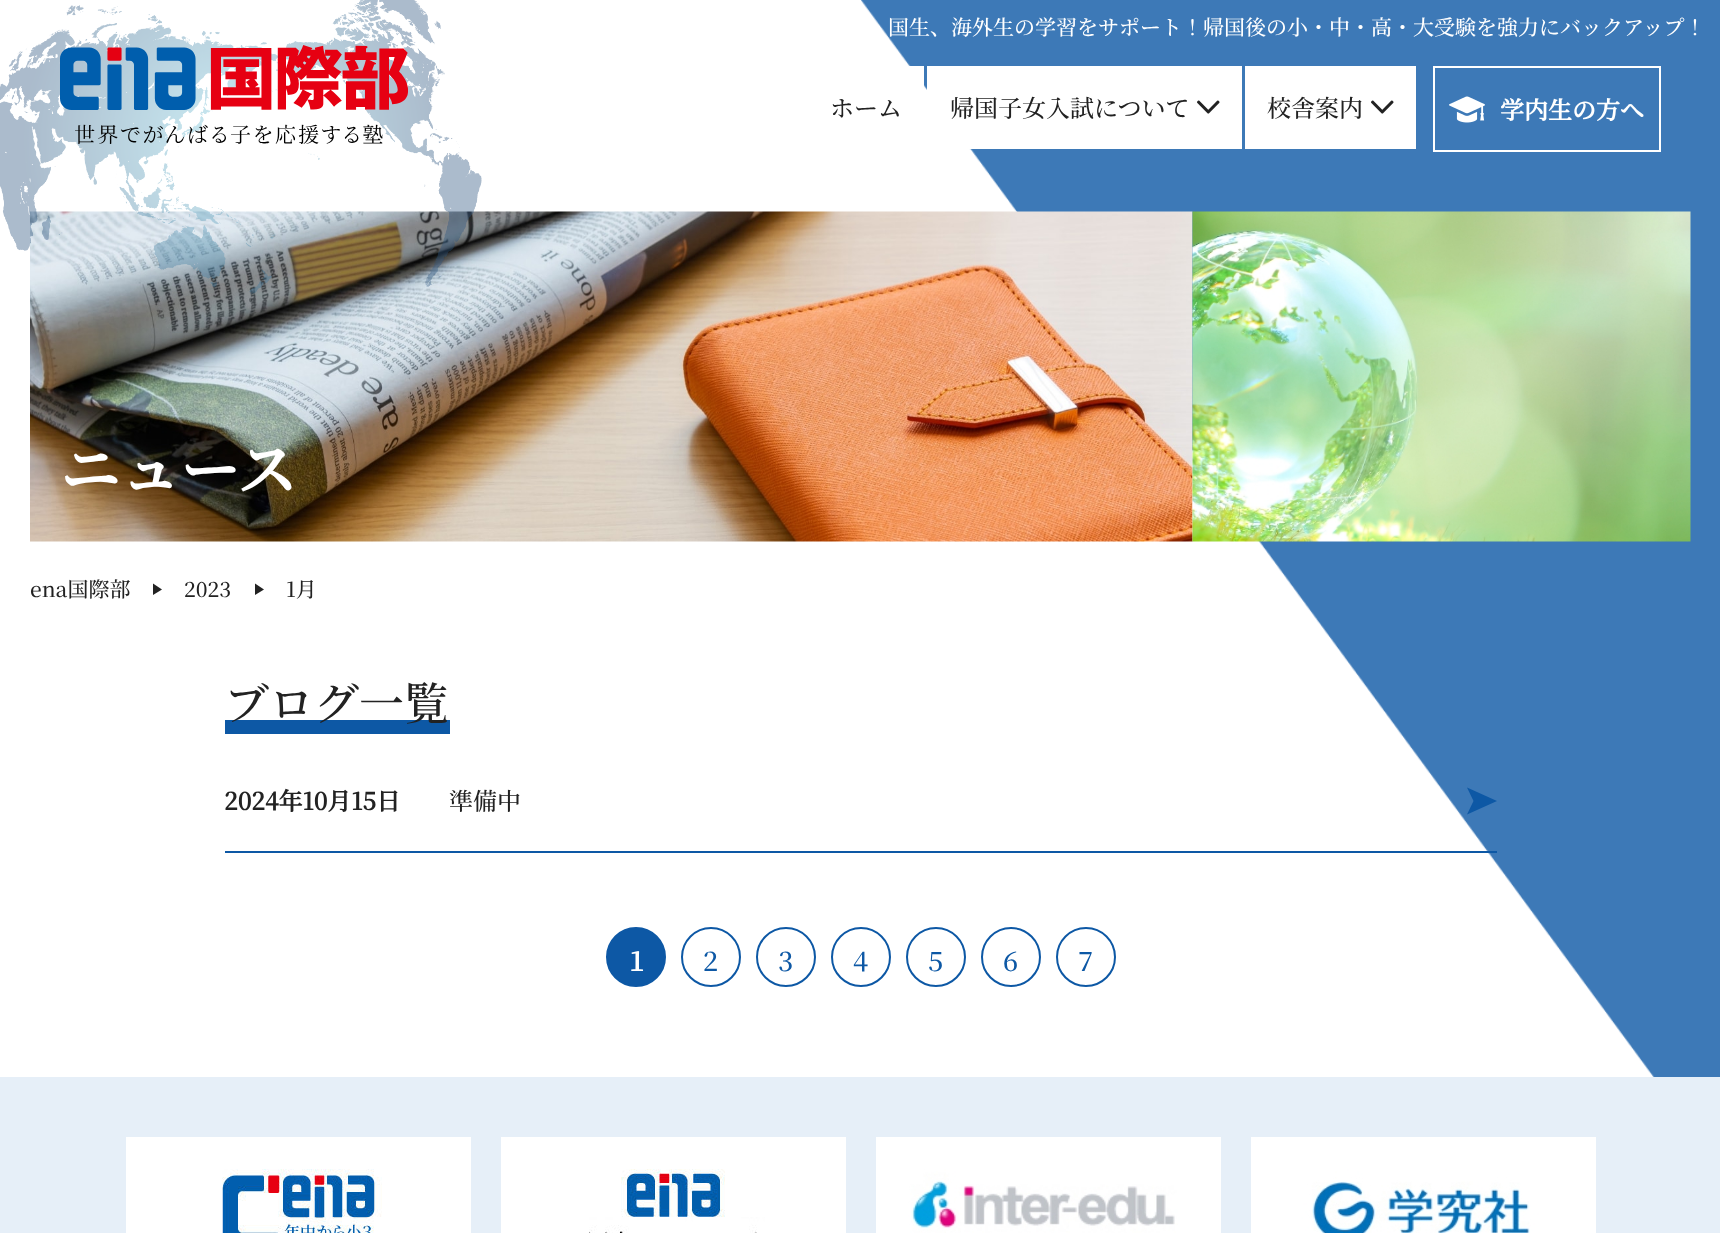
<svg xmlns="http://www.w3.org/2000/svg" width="1720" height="1233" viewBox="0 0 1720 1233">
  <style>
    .t1 { font: 200 21px Noto Serif JP; fill: #fff; }
    .t2 { font: 200 24px Noto Serif JP; fill: #222; }
    .t3 { font: bold 24px Noto Serif JP; fill: #fff; }
    .t4 { font: bold 60px Noto Serif JP; fill: #fff; }
    .t5 { font: 200 21px Noto Serif JP; fill: #222; }
    .t6 { font: 200 45px Noto Serif JP; fill: #222; }
    .t7 { font: bold 24px Noto Serif JP; fill: #222; }
    .t8 { font: bold 27px Noto Serif JP; fill: #fff; }
    .t9 { font: 200 27px Noto Serif JP; fill: #0d58a5; }
  </style>
  <rect width="100%" height="100%" fill="#fff"/>
  <image x="861" y="0" width="859" height="1077" href="images/1.png"/>
  <text x="888" y="35" class="t1">国生、海外生の学習をサポート！帰国後の小・中・高・大受験を強力にバックアップ！</text>
  <image x="30" y="211" width="1163" height="331" href="images/6.png"/>
  <image x="0" y="0" width="482" height="294" href="images/2.png"/>
  <image x="60" y="45" width="348" height="99" href="images/3.png"/>
  <rect x="909" y="66" width="15" height="21" fill="#fff"/>
  <text x="830" y="117" class="t2">ホーム</text>
  <rect x="927" y="66" width="315" height="83" fill="#fff"/>
  <text x="950" y="117" class="t2">帰国子女入試について</text>
  <image x="1197" y="100" width="23" height="14" href="images/4.png"/>
  <rect x="1245" y="66" width="171" height="83" fill="#fff"/>
  <text x="1267" y="117" class="t2">校舎案内</text>
  <image x="1371" y="100" width="23" height="14" href="images/4.png"/>
  <image x="1449" y="96" width="36" height="27" href="images/5.png"/>
  <rect x="1434" y="67" width="226" height="84" fill="none" stroke="#fff" stroke-width="2"/>
  <text x="1500" y="119" class="t3">学内生の方へ</text>
  <image x="1192" y="211" width="499" height="331" href="images/7.png"/>
  <text x="60" y="492" class="t4">ニュース</text>
  <path d="M162 589.5L153 595V583.5Z" fill="#222"/>
  <text x="30" y="597" class="t5">ena国際部</text>
  <path d="M264 589.5L255 595V583.5Z" fill="#222"/>
  <text x="184" y="597" class="t5">2023</text>
  <text x="286" y="597" class="t5">1月</text>
  <rect x="225" y="720" width="225" height="14" fill="#0d58a5"/>
  <text x="224" y="720" class="t6">ブログ一覧</text>
  <rect x="225" y="851" width="1272" height="2" fill="#0d58a5"/>
  <path d="M1497 801L1467 787.5L1473.5 801ZM1497 801L1467 814.5L1473.5 801Z" fill="#0d58a5"/>
  <text x="224" y="810" class="t7">2024年10月15日</text>
  <text x="449" y="810" class="t2">準備中</text>
  <circle cx="636" cy="957" r="29" fill="#0d58a5" stroke="#0d58a5" stroke-width="2"/>
  <text x="629" y="971" class="t8">1</text>
  <circle cx="711" cy="957" r="29" fill="none" stroke="#0d58a5" stroke-width="2"/>
  <text x="703" y="971" class="t9">2</text>
  <circle cx="786" cy="957" r="29" fill="none" stroke="#0d58a5" stroke-width="2"/>
  <text x="778" y="971" class="t9">3</text>
  <circle cx="861" cy="957" r="29" fill="none" stroke="#0d58a5" stroke-width="2"/>
  <text x="853" y="971" class="t9">4</text>
  <circle cx="936" cy="957" r="29" fill="none" stroke="#0d58a5" stroke-width="2"/>
  <text x="928" y="971" class="t9">5</text>
  <circle cx="1011" cy="957" r="29" fill="none" stroke="#0d58a5" stroke-width="2"/>
  <text x="1003" y="971" class="t9">6</text>
  <circle cx="1086" cy="957" r="29" fill="none" stroke="#0d58a5" stroke-width="2"/>
  <text x="1078" y="971" class="t9">7</text>
  <rect x="0" y="1077" width="1720" height="156" fill="#e6eff8"/>
  <image x="126" y="1137" width="345" height="96" href="images/8.png"/>
  <image x="501" y="1137" width="345" height="96" href="images/9.png"/>
  <image x="876" y="1137" width="345" height="96" href="images/10.png"/>
  <image x="1251" y="1137" width="345" height="96" href="images/11.png"/>
</svg>
